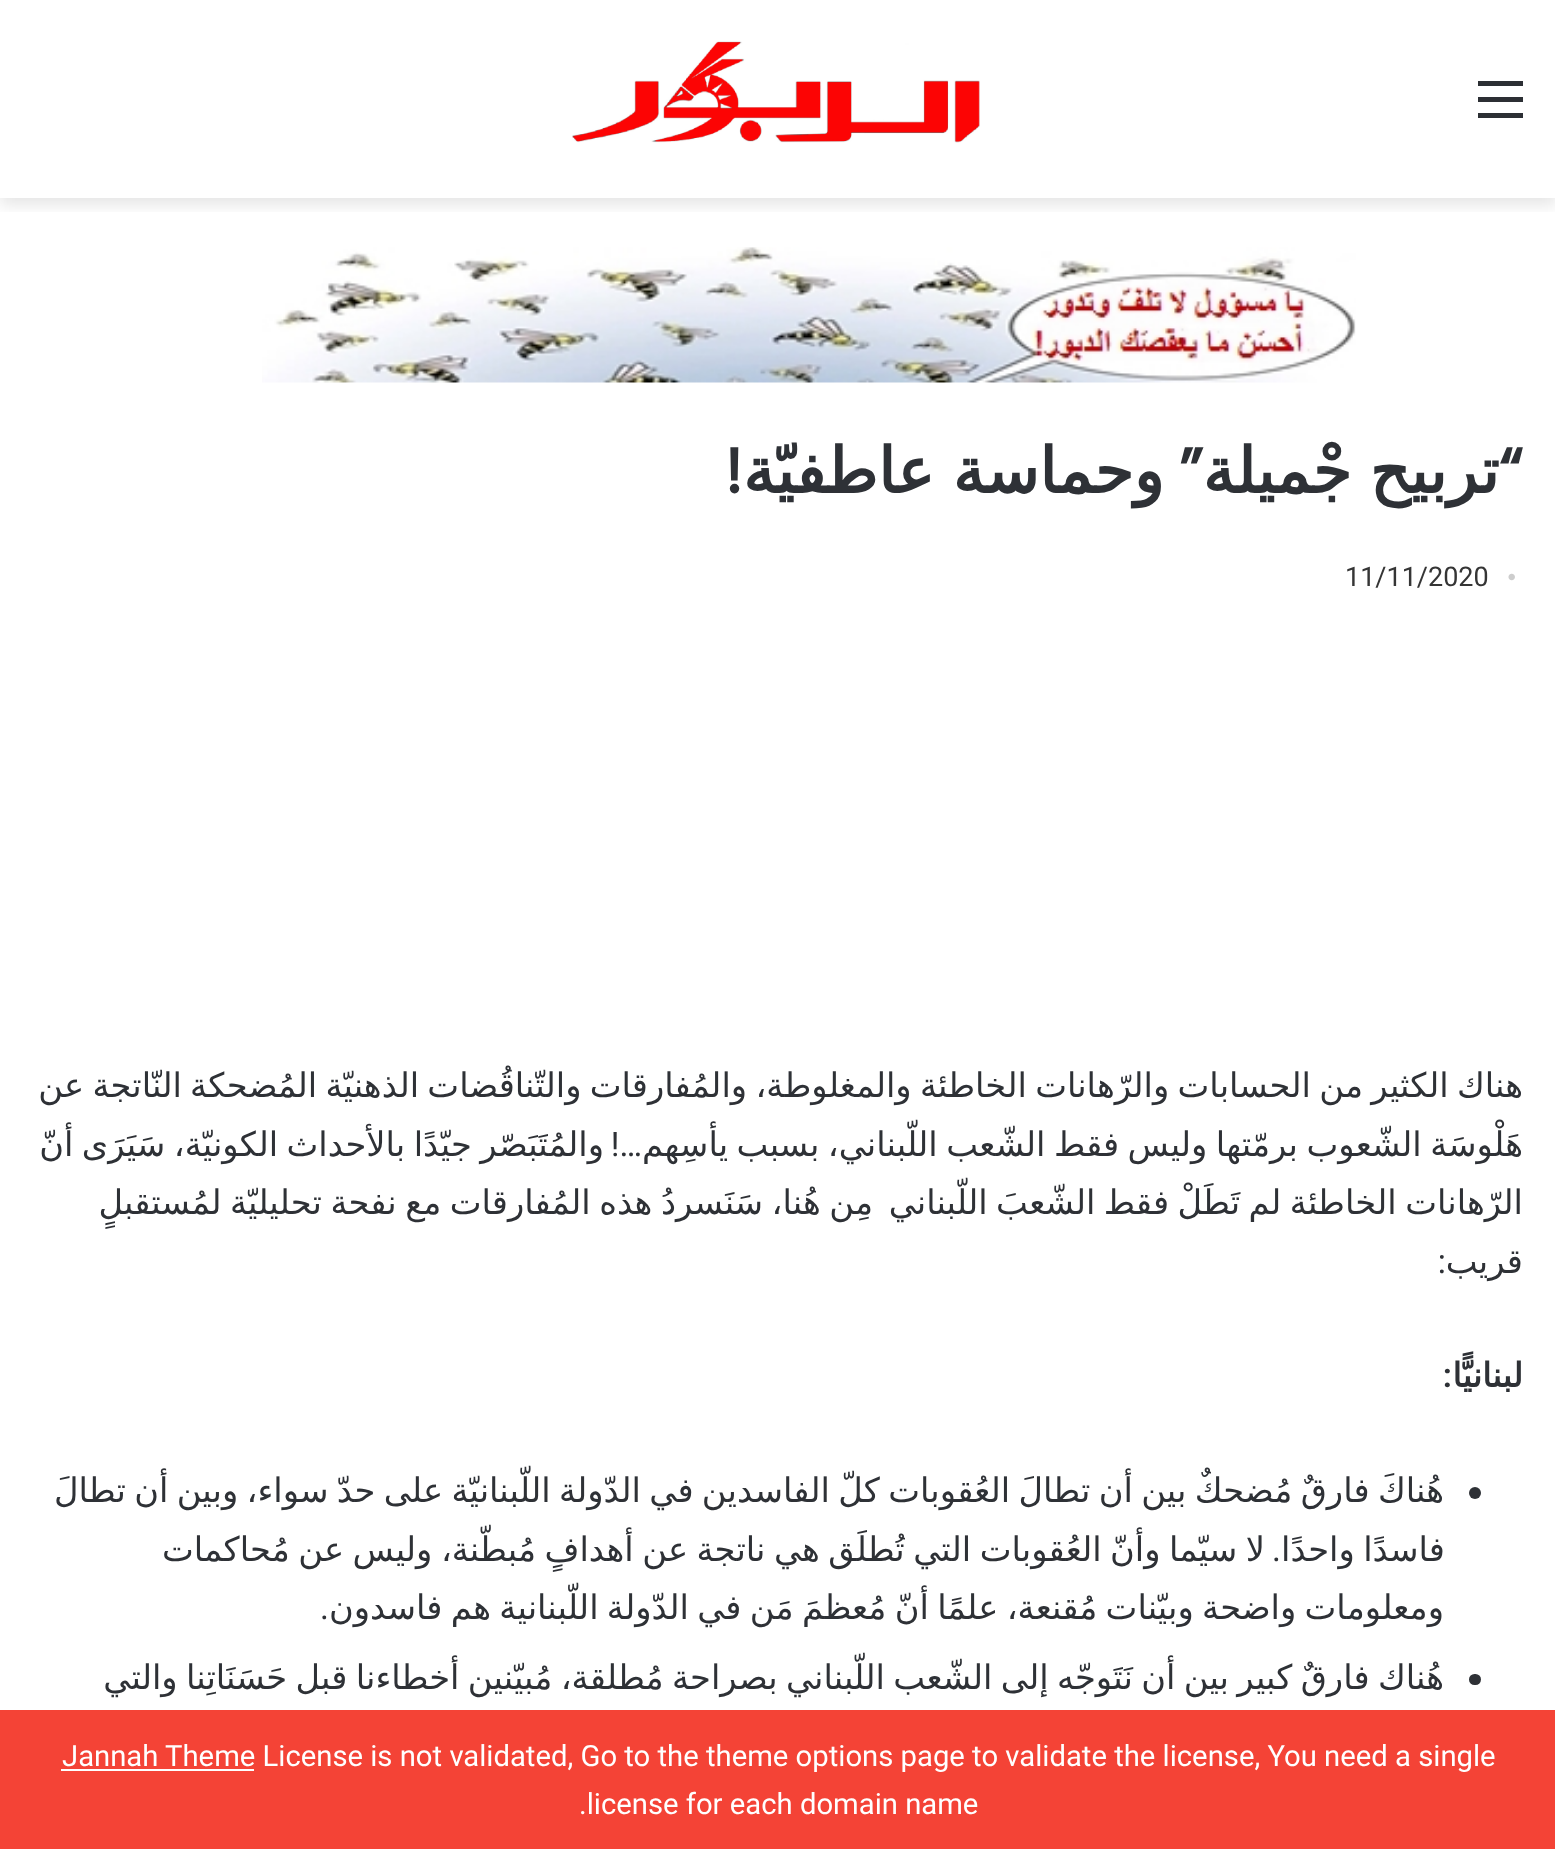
<svg xmlns="http://www.w3.org/2000/svg" width="1555" height="1849" viewBox="0 0 1555 1849">
  <style>
    .t1 { font: bold 63px Poppins; direction: rtl; fill: #2e3136; }
    .t2 { font: bold 63px DejaVu Sans; direction: rtl; fill: #2e3136; }
    .t3 { font: 27px Liberation Serif; fill: #cdcdcd; }
    .t4 { font: 27px Roboto; fill: #353535; }
    .t5 { font: 33.75px DejaVu Sans; direction: rtl; fill: #2e3136; }
    .t6 { font: 33.75px Roboto; direction: rtl; fill: #2e3136; }
    .t7 { font: bold 33.75px DejaVu Sans; direction: rtl; fill: #2e3136; }
    .t8 { font: 600 33.75px Roboto; direction: rtl; fill: #2e3136; }
    .t9 { font: 29.25px Roboto; fill: #fff; }
  </style>
  <defs>
    <clipPath id="clip1"><rect x="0" y="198" width="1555" height="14"/></clipPath>
  </defs>
  <rect width="100%" height="100%" fill="#fff"/>
  <g clip-path="url(#clip1)">
    <rect x="0" y="7" width="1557" height="198" fill="#0000001a" filter="blur(8px)"/>
  </g>
  <rect x="1478" y="97" width="45" height="5" fill="#2c2f34"/>
  <rect x="1478" y="81" width="45" height="5" fill="#2c2f34"/>
  <rect x="1478" y="113" width="45" height="5" fill="#2c2f34"/>
  <image x="572" y="41" width="408" height="102" href="images/1.png"/>
  <image x="262" y="247" width="1094" height="136" href="images/2.png"/>
  <text x="1523" y="493" class="t1">“</text>
  <text x="1499" y="493" word-spacing="-2" class="t2">تربيح جْميلة</text>
  <text x="1203" y="493" class="t1">”</text>
  <text x="1164" y="493" word-spacing="-2" class="t2">وحماسة عاطفيّة</text>
  <text x="743" y="493" class="t1">!</text>
  <text x="1507" y="586" class="t3">•</text>
  <text x="1345" y="586" class="t4">11/11/2020</text>
  <text x="1523" y="1097" word-spacing="-2.4" class="t5">هناك الكثير من الحسابات والرّهانات الخاطئة والمغلوطة، والمُفارقات والتّناقُضات الذهنيّة المُضحكة النّاتجة عن</text>
  <text x="1523" y="1156" word-spacing="-2.25" class="t5">هَلْوسَة الشّعوب برمّتها وليس فقط الشّعب اللّبناني، بسبب يأسِهم</text>
  <text x="642" y="1156" class="t6">…!</text>
  <text x="604" y="1156" word-spacing="-2.25" class="t5">والمُتَبَصّر جيّدًا بالأحداث الكونيّة، سَيَرَى أنّ</text>
  <text x="1523" y="1214" word-spacing="-2.25" class="t5">الرّهانات الخاطئة لم تَطَلْ فقط الشّعبَ اللّبناني</text>
  <text x="873" y="1214" word-spacing="-2.25" class="t5">مِن هُنا، سَنَسردُ هذه المُفارقات مع نفحة تحليليّة لمُستقبلٍ</text>
  <text x="1523" y="1273" class="t5">قريب</text>
  <text x="1446" y="1273" class="t6">:</text>
  <text x="1523" y="1387" class="t7">لبنانيًّا</text>
  <text x="1452" y="1387" class="t8">:</text>
  <circle cx="1475" cy="1493" r="6" fill="#2e3136"/>
  <text x="1444" y="1502" word-spacing="-2.4" class="t5">هُناكَ فارقٌ مُضحكٌ بين أن تطالَ العُقوبات كلّ الفاسدين في الدّولة اللّبنانيّة على حدّ سواء، وبين أن تطالَ</text>
  <text x="1445" y="1561" word-spacing="-2.25" class="t5">فاسدًا واحدًا</text>
  <text x="1265" y="1561" word-spacing="-2.25" class="t5">لا سيّما وأنّ العُقوبات التي تُطلَق هي ناتجة عن أهدافٍ مُبطّنة، وليس عن مُحاكمات</text>
  <text x="1281" y="1561" class="t6">.</text>
  <text x="1444" y="1619" word-spacing="-2.4" class="t5">ومعلومات واضحة وبيّنات مُقنعة، علمًا أنّ مُعظمَ مَن في الدّولة اللّبنانية هم فاسدون</text>
  <text x="329" y="1619" class="t6">.</text>
  <rect x="1469" y="1674" width="12" height="11" rx="5.5" fill="#2e3136"/>
  <text x="1444" y="1689" word-spacing="-2.4" class="t5">هُناك فارقٌ كبير بين أن نَتَوجّه إلى الشّعب اللّبناني بصراحة مُطلقة، مُبيّنين أخطاءنا قبل حَسَنَاتِنا والتي</text>
  <rect x="0" y="1710" width="1555" height="139" fill="#f44336"/>
  <rect x="61" y="1769" width="193" height="2" fill="#fff"/>
  <text x="62" y="1766" class="t9">Jannah Theme License is not validated, Go to the theme options page to validate the license, You need a single</text>
  <text x="579" y="1814" class="t9">.license for each domain name</text>
</svg>
